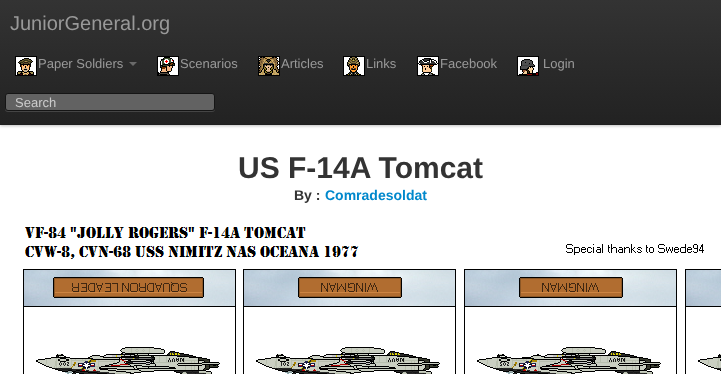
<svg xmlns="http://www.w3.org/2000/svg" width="721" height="374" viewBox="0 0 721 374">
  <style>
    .t1 { font: 20px Liberation Sans; fill: #999; }
    .t2 { font: 13px Liberation Sans; fill: #999; }
    .t3 { font: 13px Liberation Sans; fill: #ccc; }
    .t4 { font: bold 30px Liberation Sans; fill: #333; }
    .t5 { font: bold 14px Liberation Sans; fill: #333; }
    .t6 { font: bold 14px Liberation Sans; fill: #08c; }
  </style>
  <defs>
    <linearGradient id="g1" gradientUnits="userSpaceOnUse" x1="361" y1="0" x2="361" y2="125"><stop offset="0" stop-color="#333"/><stop offset="1" stop-color="#222"/></linearGradient>
  </defs>
  <rect width="100%" height="100%" fill="#fff"/>
  <rect x="0" y="1" width="721" height="125" fill="#00000040" filter="blur(1.5px)"/>
  <rect x="0" y="0" width="721" height="124" fill="url(#g1)"/>
  <rect x="0" y="124" width="721" height="1" fill="#1f1f1f"/>
  <text x="10" y="30" class="t1">JuniorGeneral.org</text>
  <image x="15" y="56" width="22" height="20" href="images/1.png"/>
  <text x="38" y="68" class="t2">Paper Soldiers</text>
  <path d="M129 62H137L133 66Z" fill="#6a6a6a"/>
  <image x="157" y="56" width="22" height="20" href="images/2.png"/>
  <text x="180" y="68" class="t2">Scenarios</text>
  <image x="258" y="56" width="22" height="20" href="images/3.png"/>
  <text x="281" y="68" class="t2">Articles</text>
  <image x="343" y="56" width="22" height="20" href="images/4.png"/>
  <text x="366" y="68" class="t2">Links</text>
  <image x="417" y="56" width="22" height="20" href="images/5.png"/>
  <text x="440" y="68" class="t2">Facebook</text>
  <image x="517" y="56" width="22" height="20" href="images/6.png"/>
  <text x="543" y="68" class="t2">Login</text>
  <path d="M5 108V109C5 111 6 112 8 112H212C214 112 215 111 215 109V108C215 110 214 111 212 111H8L6 110Z" fill="#454545"/>
  <rect x="5.5" y="93.5" width="209" height="17" rx="2.5" fill="#626262" stroke="#151515"/>
  <text x="15" y="107" class="t3">Search</text>
  <text x="238" y="178" class="t4">US F-14A Tomcat</text>
  <text x="294" y="200" class="t5">By :</text>
  <text x="325" y="200" class="t6">Comradesoldat</text>
  <image x="23" y="227" width="698" height="147" href="images/7.png"/>
</svg>
